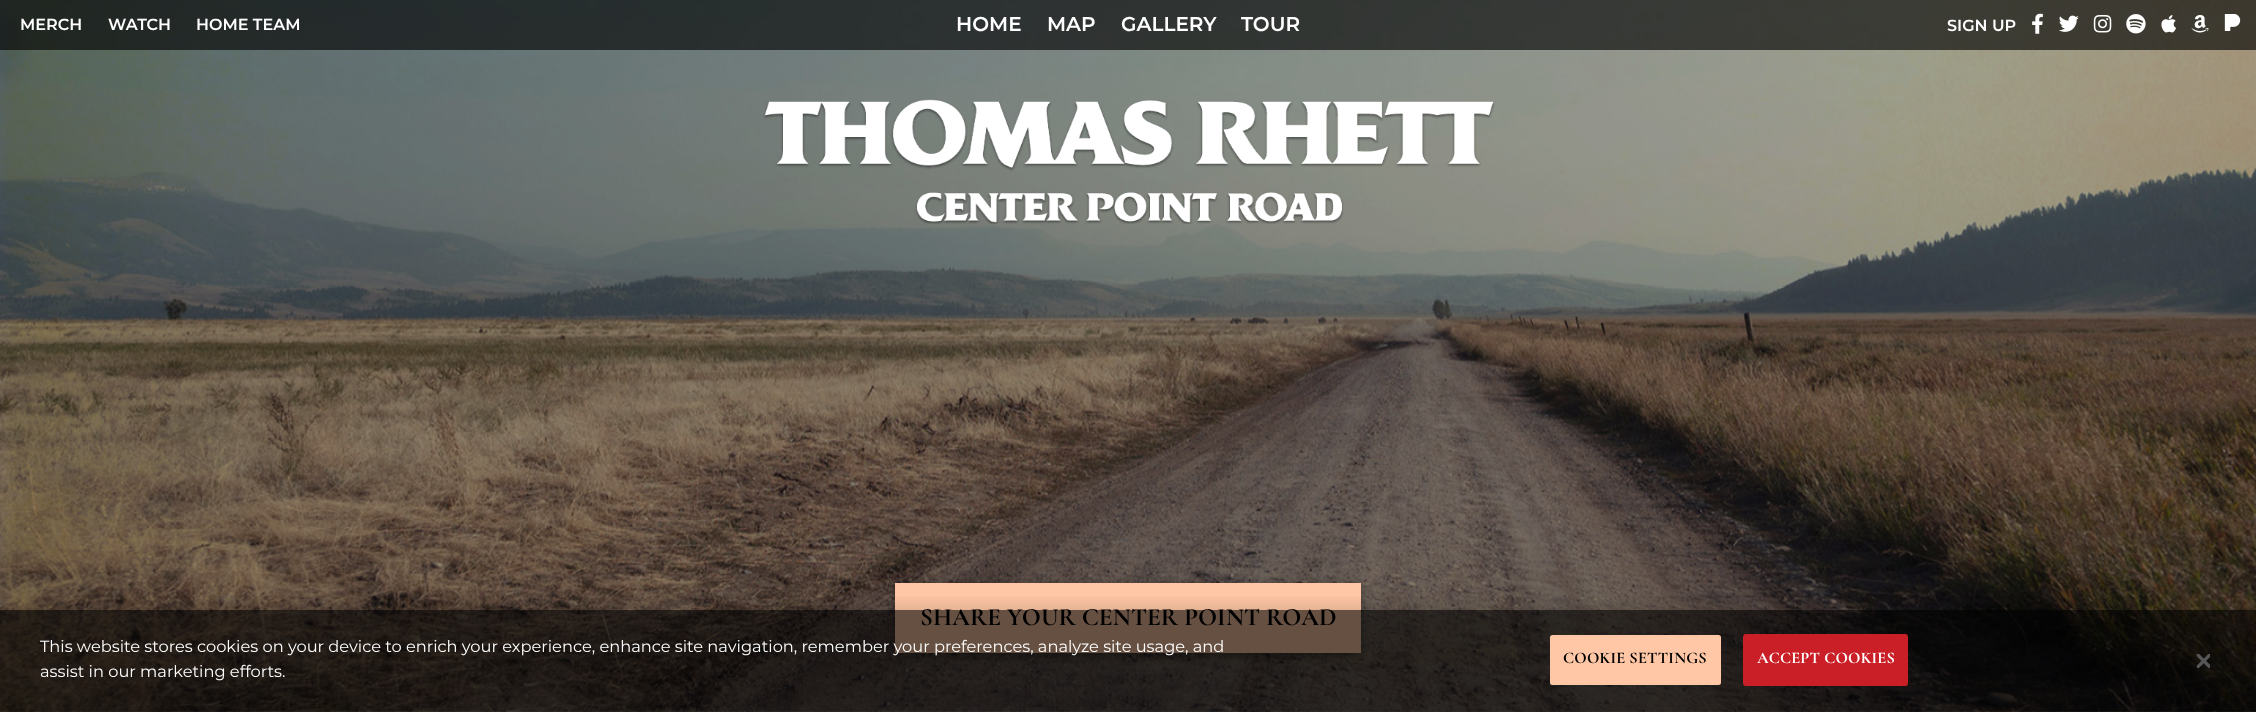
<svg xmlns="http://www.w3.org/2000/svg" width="2256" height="712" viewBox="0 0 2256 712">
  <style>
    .t1 { font: 600 20px Montserrat; fill: #fff; }
    .t2 { font: 600 16px Montserrat; fill: #fff; }
    .t3 { font: bold 25px Cormorant Garamond; fill: #000; }
    .t4 { font: 16.25px Montserrat; fill: #fff; }
    .t5 { font: bold 16.25px Cormorant Garamond; letter-spacing: 0.2px; fill: #000; }
    .t6 { font: bold 16.25px Cormorant Garamond; letter-spacing: 0.2px; fill: #fff; }
  </style>
  <defs>
    <clipPath id="clip1"><rect x="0" y="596" width="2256" height="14"/></clipPath>
  </defs>
  <rect width="100%" height="100%" fill="#fff"/>
  <image x="0" y="0" width="2256" height="712" href="images/1.png"/>
  <rect x="0" y="0" width="2256" height="50" fill="#0000009e"/>
  <text x="956" y="31" class="t1">HOME</text>
  <text x="1047" y="31" class="t1">MAP</text>
  <text x="1121" y="31" class="t1">GALLERY</text>
  <text x="1241" y="31" class="t1">TOUR</text>
  <text x="20" y="30" class="t2">MERCH</text>
  <text x="108" y="30" class="t2">WATCH</text>
  <text x="196" y="30" class="t2">HOME TEAM</text>
  <text x="1947" y="31" class="t2">SIGN UP</text>
  <image x="2032" y="13" width="11" height="21" href="images/2.png"/>
  <image x="2059" y="15" width="20" height="17" href="images/3.png"/>
  <image x="2093" y="15" width="19" height="18" href="images/4.png"/>
  <image x="2126" y="14" width="20" height="20" href="images/5.png"/>
  <image x="2161" y="15" width="15" height="18" href="images/6.png"/>
  <image x="2191" y="15" width="18" height="18" href="images/7.png"/>
  <image x="2224" y="14" width="17" height="17" href="images/8.png"/>
  <image x="763" y="99" width="732" height="125" href="images/9.png"/>
  <rect x="895" y="585" width="466" height="70" fill="#00000066" filter="blur(5px)"/>
  <rect x="895" y="583" width="466" height="70" fill="#ffc7a6"/>
  <text x="920" y="625" class="t3">SHARE YOUR CENTER POINT ROAD</text>
  <g clip-path="url(#clip1)">
    <rect x="0" y="610" width="2256" height="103" fill="#00000033" filter="blur(11px)"/>
  </g>
  <rect x="0" y="610" width="2256" height="102" fill="#00000099"/>
  <text x="40" y="652" class="t4">This website stores cookies on your device to enrich your experience, enhance site navigation, remember your preferences, analyze site usage, and</text>
  <text x="40" y="677" class="t4">assist in our marketing efforts.</text>
  <rect x="1550" y="635" width="171" height="50" rx="2.5" fill="#ffc7a6"/>
  <text x="1563" y="663" class="t5">COOKIE SETTINGS</text>
  <rect x="1743.5" y="634.5" width="164" height="51" rx="2" fill="#ca1f26" stroke="#ca1f26"/>
  <text x="1757" y="663" class="t6">ACCEPT COOKIES</text>
  <image x="2196" y="654" width="14" height="15" href="images/10.png"/>
</svg>
